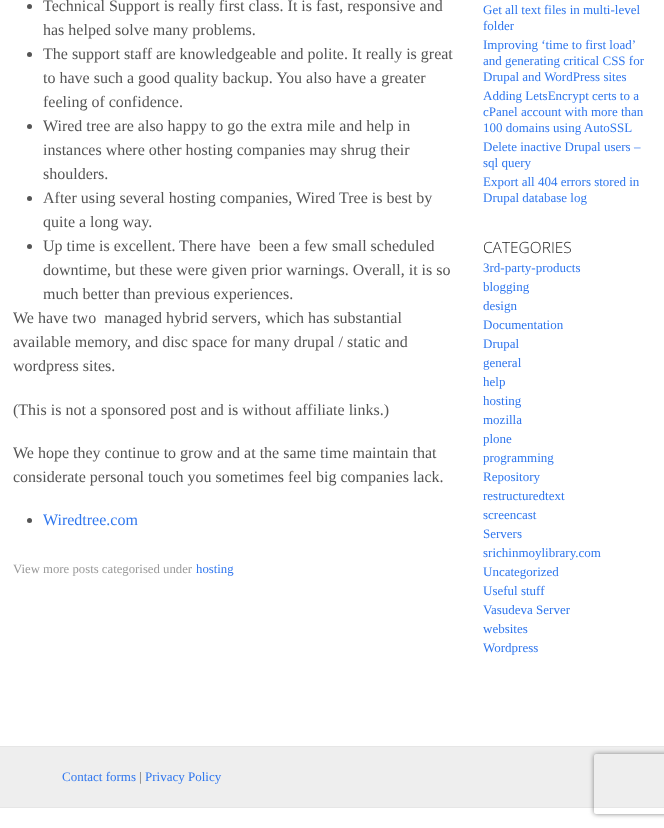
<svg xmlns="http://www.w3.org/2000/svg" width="664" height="828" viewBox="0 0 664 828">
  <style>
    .t1 { font: 16px Liberation Serif; fill: #555; }
    .t2 { font: 16px Liberation Serif; fill: #3077ee; }
    .t3 { font: 12.75px Liberation Serif; fill: #999; }
    .t4 { font: 12.75px Liberation Serif; fill: #3077ee; }
    .t5 { font: 13px Liberation Serif; fill: #3077ee; }
    .t6 { font: 300 15.5px Open Sans; fill: #222; }
    .t7 { font: 13px Liberation Serif; fill: #666; }
  </style>
  <defs>
    <clipPath id="clip1"><path d="M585 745H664V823H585ZM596 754H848C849 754 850 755 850 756V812C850 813 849 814 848 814H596C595 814 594 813 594 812V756C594 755 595 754 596 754Z" clip-rule="evenodd"/></clipPath>
  </defs>
  <rect width="100%" height="100%" fill="#fff"/>
  <circle cx="29.5" cy="6.5" r="2.5" fill="#555"/>
  <text x="43" y="11" class="t1">Technical Support is really first class. It is fast, responsive and</text>
  <text x="43" y="35" class="t1">has helped solve many problems.</text>
  <circle cx="29.5" cy="54.5" r="2.5" fill="#555"/>
  <text x="43" y="59" class="t1">The support staff are knowledgeable and polite. It really is great</text>
  <text x="43" y="83" class="t1">to have such a good quality backup. You also have a greater</text>
  <text x="43" y="107" class="t1">feeling of confidence.</text>
  <circle cx="29.5" cy="126.5" r="2.5" fill="#555"/>
  <text x="43" y="131" class="t1">Wired tree are also happy to go the extra mile and help in</text>
  <text x="43" y="155" class="t1">instances where other hosting companies may shrug their</text>
  <text x="43" y="179" class="t1">shoulders.</text>
  <circle cx="29.5" cy="198.5" r="2.5" fill="#555"/>
  <text x="43" y="203" class="t1">After using several hosting companies, Wired Tree is best by</text>
  <text x="43" y="227" class="t1">quite a long way.</text>
  <circle cx="29.5" cy="246.5" r="2.5" fill="#555"/>
  <text x="43" y="251" class="t1" xml:space="preserve">Up time is excellent. There have  been a few small scheduled</text>
  <text x="43" y="275" class="t1">downtime, but these were given prior warnings. Overall, it is so</text>
  <text x="43" y="299" class="t1">much better than previous experiences.</text>
  <text x="13" y="323" class="t1" xml:space="preserve">We have two  managed hybrid servers, which has substantial</text>
  <text x="13" y="347" class="t1">available memory, and disc space for many drupal / static and</text>
  <text x="13" y="371" class="t1">wordpress sites.</text>
  <text x="13" y="415" class="t1">(This is not a sponsored post and is without affiliate links.)</text>
  <text x="13" y="458" class="t1">We hope they continue to grow and at the same time maintain that</text>
  <text x="13" y="482" class="t1">considerate personal touch you sometimes feel big companies lack.</text>
  <circle cx="29.5" cy="520.5" r="2.5" fill="#555"/>
  <text x="43" y="525" class="t2">Wiredtree.com</text>
  <text x="13" y="573" class="t3">View more posts categorised under</text>
  <text x="196" y="573" class="t4">hosting</text>
  <text x="483" y="14" class="t5">Get all text files in multi-level</text>
  <text x="483" y="30" class="t5">folder</text>
  <text x="483" y="49" class="t5">Improving ‘time to first load’</text>
  <text x="483" y="65" class="t5">and generating critical CSS for</text>
  <text x="483" y="81" class="t5">Drupal and WordPress sites</text>
  <text x="483" y="100" class="t5">Adding LetsEncrypt certs to a</text>
  <text x="483" y="116" class="t5">cPanel account with more than</text>
  <text x="483" y="132" class="t5">100 domains using AutoSSL</text>
  <text x="483" y="151" class="t5">Delete inactive Drupal users –</text>
  <text x="483" y="167" class="t5">sql query</text>
  <text x="483" y="186" class="t5">Export all 404 errors stored in</text>
  <text x="483" y="202" class="t5">Drupal database log</text>
  <text x="483" y="253" class="t6">CATEGORIES</text>
  <text x="483" y="272" class="t5">3rd-party-products</text>
  <text x="483" y="291" class="t5">blogging</text>
  <text x="483" y="310" class="t5">design</text>
  <text x="483" y="329" class="t5">Documentation</text>
  <text x="483" y="348" class="t5">Drupal</text>
  <text x="483" y="367" class="t5">general</text>
  <text x="483" y="386" class="t5">help</text>
  <text x="483" y="405" class="t5">hosting</text>
  <text x="483" y="424" class="t5">mozilla</text>
  <text x="483" y="443" class="t5">plone</text>
  <text x="483" y="462" class="t5">programming</text>
  <text x="483" y="481" class="t5">Repository</text>
  <text x="483" y="500" class="t5">restructuredtext</text>
  <text x="483" y="519" class="t5">screencast</text>
  <text x="483" y="538" class="t5">Servers</text>
  <text x="483" y="557" class="t5">srichinmoylibrary.com</text>
  <text x="483" y="576" class="t5">Uncategorized</text>
  <text x="483" y="595" class="t5">Useful stuff</text>
  <text x="483" y="614" class="t5">Vasudeva Server</text>
  <text x="483" y="633" class="t5">websites</text>
  <text x="483" y="652" class="t5">Wordpress</text>
  <rect x="0" y="747" width="664" height="60" fill="#eee"/>
  <rect x="0" y="746" width="664" height="1" fill="#e6e6e6"/>
  <rect x="0" y="807" width="664" height="1" fill="#e6e6e6"/>
  <text x="62" y="781" class="t5">Contact forms</text>
  <text x="139" y="781" class="t7">|</text>
  <text x="145" y="781" class="t5">Privacy Policy</text>
  <g clip-path="url(#clip1)">
    <rect x="594" y="754" width="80" height="60" rx="2" fill="#808080" filter="blur(2.5px)"/>
  </g>
</svg>
